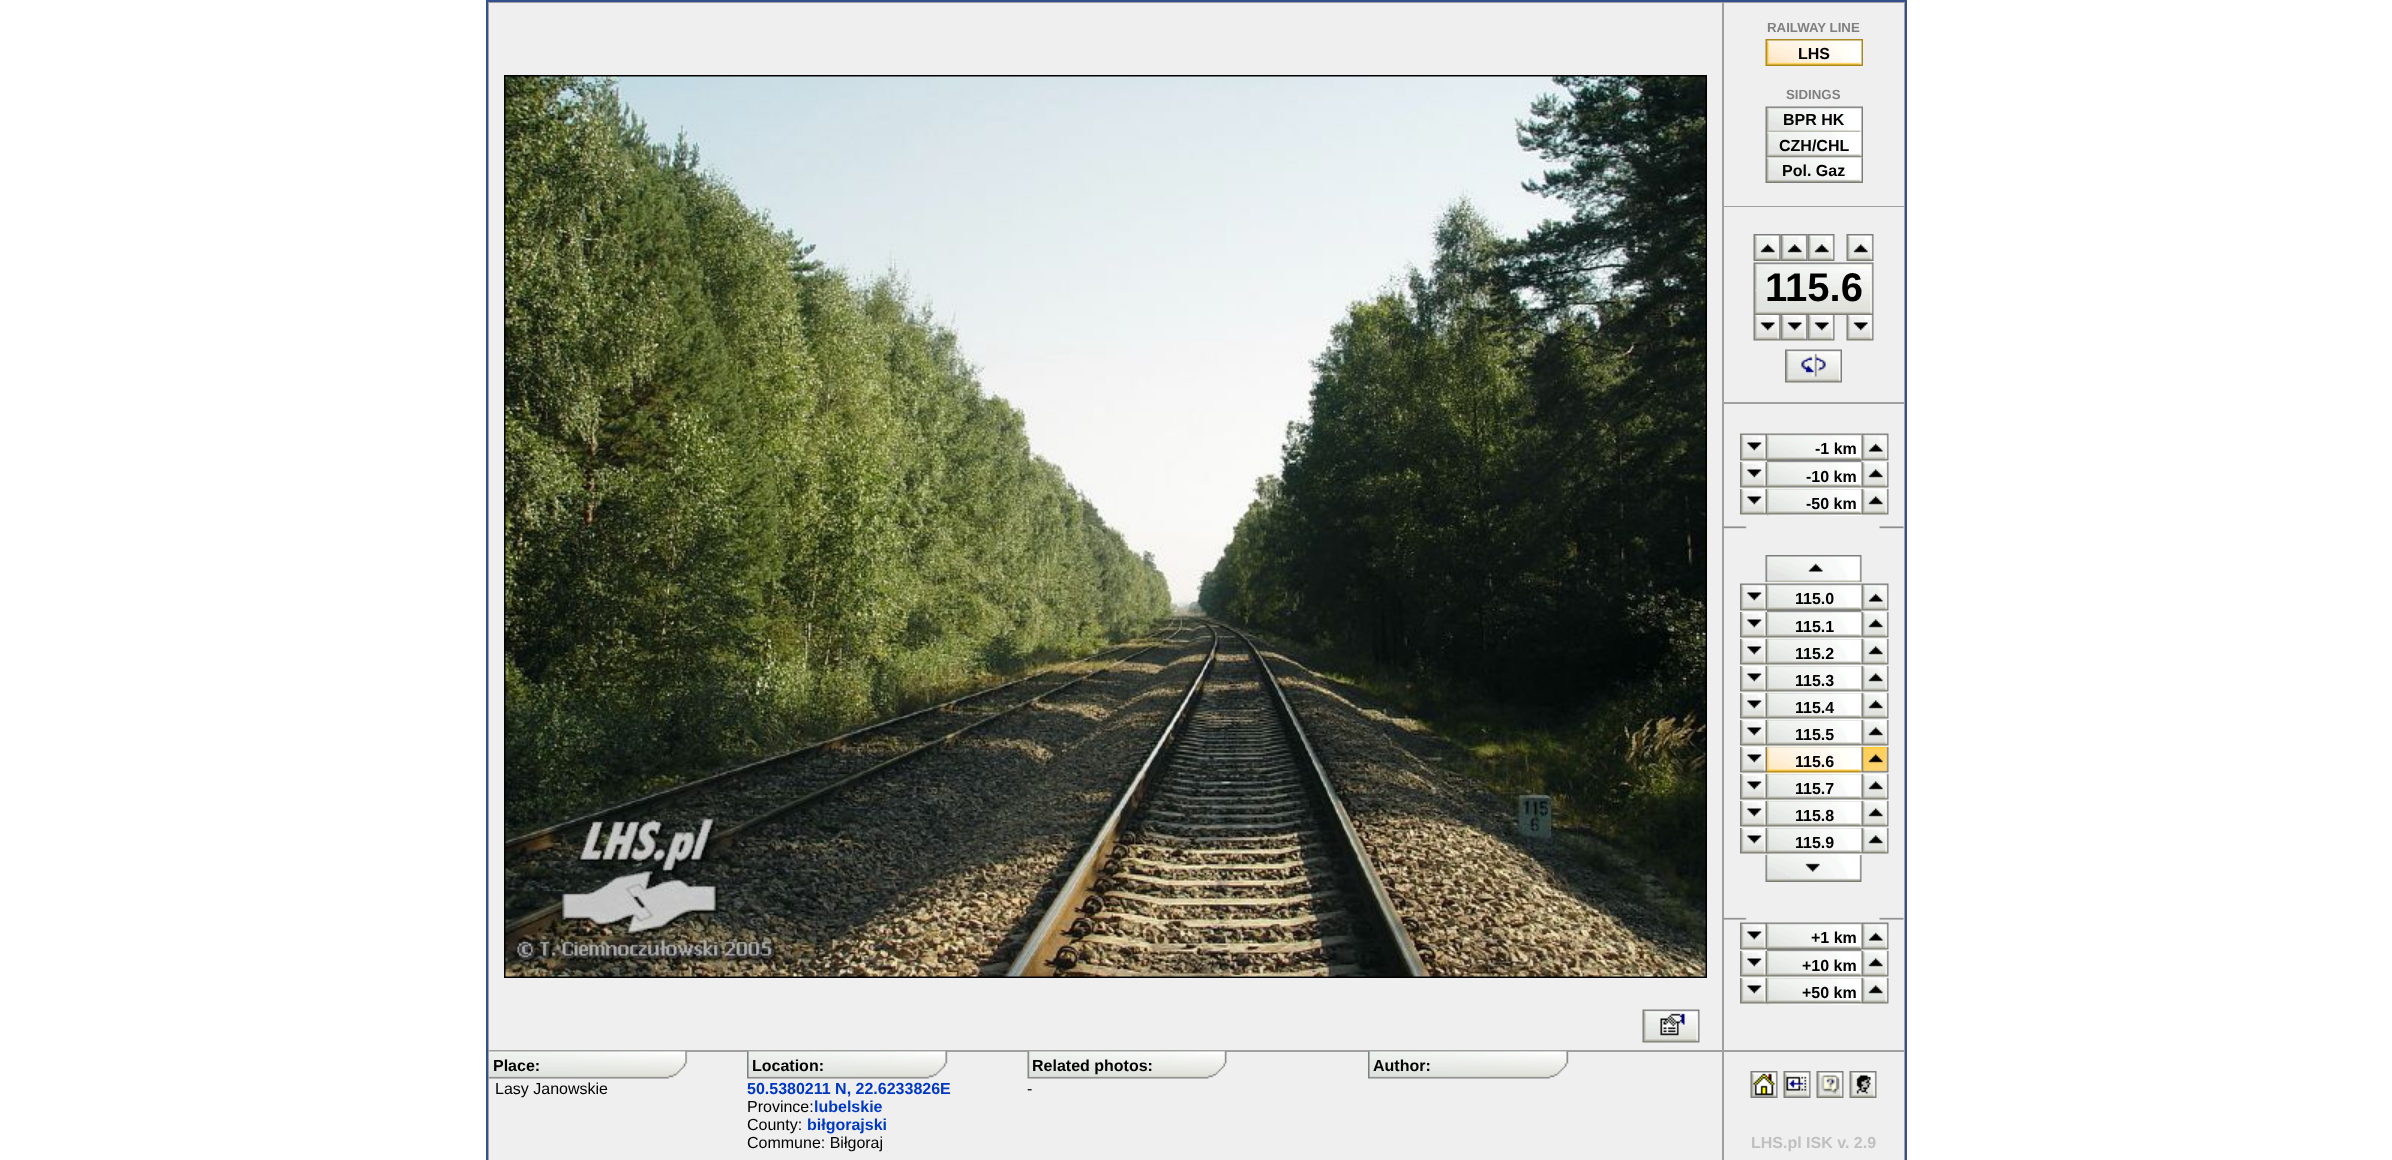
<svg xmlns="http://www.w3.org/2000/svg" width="2392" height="1160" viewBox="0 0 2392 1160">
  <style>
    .t1 { font: bold 13.25px Liberation Sans; fill: #808080; }
    .t2 { font: bold 16px Liberation Sans; fill: #000; }
    .t3 { font: bold 40px Liberation Sans; fill: #000; }
    .t4 { font: 16px Liberation Sans; fill: #000; }
    .t5 { font: bold 16px Liberation Sans; fill: #0038c3; }
    .t6 { font: bold 16px Liberation Sans; fill: #c0c0c0; }
  </style>
  <rect width="100%" height="100%" fill="#fff"/>
  <rect x="486" y="0" width="1421" height="1160" fill="#34508c"/>
  <rect x="488" y="2" width="1417" height="1158" fill="#a0a0a0"/>
  <rect x="489" y="3" width="1233" height="1047" fill="#efefef"/>
  <rect x="505" y="76" width="1201" height="901" fill="none" stroke="#000" stroke-width="2"/>
  <image x="505" y="76" width="1201" height="901" href="images/1.png"/>
  <rect x="1724" y="3" width="180" height="203" fill="#efefef"/>
  <text x="1767" y="32" class="t1">RAILWAY LINE</text>
  <image x="1765" y="39" width="98" height="27" href="images/2.png"/>
  <text x="1798" y="59" class="t2">LHS</text>
  <text x="1786" y="99" class="t1">SIDINGS</text>
  <image x="1765" y="106" width="98" height="26" href="images/3.png"/>
  <text x="1783" y="125" class="t2">BPR HK</text>
  <image x="1765" y="132" width="98" height="26" href="images/4.png"/>
  <text x="1779" y="151" class="t2">CZH/CHL</text>
  <image x="1765" y="157" width="98" height="26" href="images/5.png"/>
  <text x="1782" y="176" class="t2">Pol. Gaz</text>
  <rect x="1724" y="207" width="180" height="195" fill="#efefef"/>
  <image x="1753" y="234" width="28" height="27" href="images/6.png"/>
  <image x="1780" y="234" width="28" height="27" href="images/7.png"/>
  <image x="1807" y="234" width="28" height="27" href="images/8.png"/>
  <image x="1846" y="234" width="28" height="27" href="images/6.png"/>
  <image x="1753" y="262" width="121" height="53" href="images/9.png"/>
  <text x="1765" y="301" class="t3">115.6</text>
  <image x="1753" y="315" width="28" height="26" href="images/10.png"/>
  <image x="1780" y="315" width="28" height="26" href="images/11.png"/>
  <image x="1807" y="315" width="28" height="26" href="images/12.png"/>
  <image x="1846" y="315" width="28" height="26" href="images/10.png"/>
  <image x="1785" y="349" width="57" height="34" href="images/13.png"/>
  <rect x="1724" y="404" width="180" height="646" fill="#efefef"/>
  <image x="1740" y="433" width="27" height="28" href="images/14.png"/>
  <image x="1767" y="433" width="95" height="29" href="images/15.png"/>
  <text x="1815" y="454" class="t2">-1 km</text>
  <image x="1861" y="433" width="28" height="28" href="images/16.png"/>
  <image x="1740" y="462" width="27" height="26" href="images/17.png"/>
  <image x="1767" y="462" width="95" height="27" href="images/18.png"/>
  <text x="1806" y="482" class="t2">-10 km</text>
  <image x="1861" y="462" width="28" height="26" href="images/19.png"/>
  <image x="1740" y="489" width="27" height="26" href="images/17.png"/>
  <image x="1767" y="489" width="95" height="27" href="images/18.png"/>
  <text x="1806" y="509" class="t2">-50 km</text>
  <image x="1861" y="489" width="28" height="26" href="images/19.png"/>
  <image x="1723" y="526" width="181" height="3" href="images/20.png"/>
  <image x="1765" y="555" width="97" height="27" href="images/21.png"/>
  <image x="1740" y="583" width="27" height="28" href="images/14.png"/>
  <image x="1767" y="583" width="95" height="29" href="images/15.png"/>
  <text x="1795" y="604" class="t2">115.0</text>
  <image x="1861" y="583" width="28" height="28" href="images/16.png"/>
  <image x="1740" y="612" width="27" height="26" href="images/17.png"/>
  <image x="1767" y="612" width="95" height="27" href="images/18.png"/>
  <text x="1795" y="632" class="t2">115.1</text>
  <image x="1861" y="612" width="28" height="26" href="images/19.png"/>
  <image x="1740" y="639" width="27" height="26" href="images/17.png"/>
  <image x="1767" y="639" width="95" height="27" href="images/22.png"/>
  <text x="1795" y="659" class="t2">115.2</text>
  <image x="1861" y="639" width="28" height="26" href="images/19.png"/>
  <image x="1740" y="666" width="27" height="26" href="images/17.png"/>
  <image x="1767" y="666" width="95" height="27" href="images/22.png"/>
  <text x="1795" y="686" class="t2">115.3</text>
  <image x="1861" y="666" width="28" height="26" href="images/19.png"/>
  <image x="1740" y="693" width="27" height="26" href="images/17.png"/>
  <image x="1767" y="693" width="95" height="27" href="images/22.png"/>
  <text x="1795" y="713" class="t2">115.4</text>
  <image x="1861" y="693" width="28" height="26" href="images/19.png"/>
  <image x="1740" y="720" width="27" height="26" href="images/17.png"/>
  <image x="1767" y="720" width="95" height="27" href="images/23.png"/>
  <text x="1795" y="740" class="t2">115.5</text>
  <image x="1861" y="720" width="28" height="26" href="images/19.png"/>
  <image x="1740" y="747" width="27" height="26" href="images/17.png"/>
  <image x="1767" y="747" width="95" height="27" href="images/24.png"/>
  <text x="1795" y="767" class="t2">115.6</text>
  <image x="1861" y="747" width="28" height="26" href="images/25.png"/>
  <image x="1740" y="774" width="27" height="26" href="images/17.png"/>
  <image x="1767" y="774" width="95" height="27" href="images/22.png"/>
  <text x="1795" y="794" class="t2">115.7</text>
  <image x="1861" y="774" width="28" height="26" href="images/19.png"/>
  <image x="1740" y="801" width="27" height="26" href="images/17.png"/>
  <image x="1767" y="801" width="95" height="27" href="images/22.png"/>
  <text x="1795" y="821" class="t2">115.8</text>
  <image x="1861" y="801" width="28" height="26" href="images/19.png"/>
  <image x="1740" y="828" width="27" height="26" href="images/17.png"/>
  <image x="1767" y="828" width="95" height="27" href="images/22.png"/>
  <text x="1795" y="848" class="t2">115.9</text>
  <image x="1861" y="828" width="28" height="26" href="images/19.png"/>
  <image x="1765" y="855" width="97" height="27" href="images/26.png"/>
  <image x="1723" y="917" width="181" height="3" href="images/27.png"/>
  <image x="1740" y="922" width="27" height="28" href="images/14.png"/>
  <image x="1767" y="922" width="95" height="29" href="images/28.png"/>
  <text x="1811" y="943" class="t2">+1 km</text>
  <image x="1861" y="922" width="28" height="28" href="images/16.png"/>
  <image x="1740" y="951" width="27" height="26" href="images/17.png"/>
  <image x="1767" y="951" width="95" height="27" href="images/29.png"/>
  <text x="1802" y="971" class="t2">+10 km</text>
  <image x="1861" y="951" width="28" height="26" href="images/19.png"/>
  <image x="1740" y="978" width="27" height="26" href="images/17.png"/>
  <image x="1767" y="978" width="95" height="27" href="images/30.png"/>
  <text x="1802" y="998" class="t2">+50 km</text>
  <image x="1861" y="978" width="28" height="26" href="images/19.png"/>
  <rect x="489" y="1052" width="1233" height="108" fill="#efefef"/>
  <image x="489" y="1051" width="199" height="28" href="images/31.png"/>
  <text x="493" y="1071" class="t2">Place:</text>
  <image x="747" y="1051" width="201" height="28" href="images/32.png"/>
  <text x="752" y="1071" class="t2">Location:</text>
  <image x="1027" y="1051" width="200" height="28" href="images/33.png"/>
  <text x="1032" y="1071" class="t2">Related photos:</text>
  <image x="1368" y="1051" width="201" height="28" href="images/34.png"/>
  <text x="1373" y="1071" class="t2">Author:</text>
  <image x="1642" y="1009" width="58" height="34" href="images/35.png"/>
  <text x="495" y="1094" class="t4">Lasy Janowskie</text>
  <text x="747" y="1094" class="t5">50.5380211 N, 22.6233826E</text>
  <text x="747" y="1112" class="t4">Province:</text>
  <text x="814" y="1112" class="t5">lubelskie</text>
  <text x="747" y="1130" class="t4">County:</text>
  <text x="807" y="1130" class="t5">biłgorajski</text>
  <text x="747" y="1148" class="t4">Commune: Biłgoraj</text>
  <text x="1027" y="1094" class="t4">-</text>
  <rect x="1724" y="1052" width="180" height="108" fill="#efefef"/>
  <image x="1750" y="1071" width="28" height="27" href="images/36.png"/>
  <image x="1783" y="1071" width="28" height="27" href="images/37.png"/>
  <image x="1816" y="1071" width="28" height="27" href="images/38.png"/>
  <image x="1849" y="1071" width="28" height="27" href="images/39.png"/>
  <text x="1751" y="1148" class="t6">LHS.pl ISK v. 2.9</text>
</svg>
